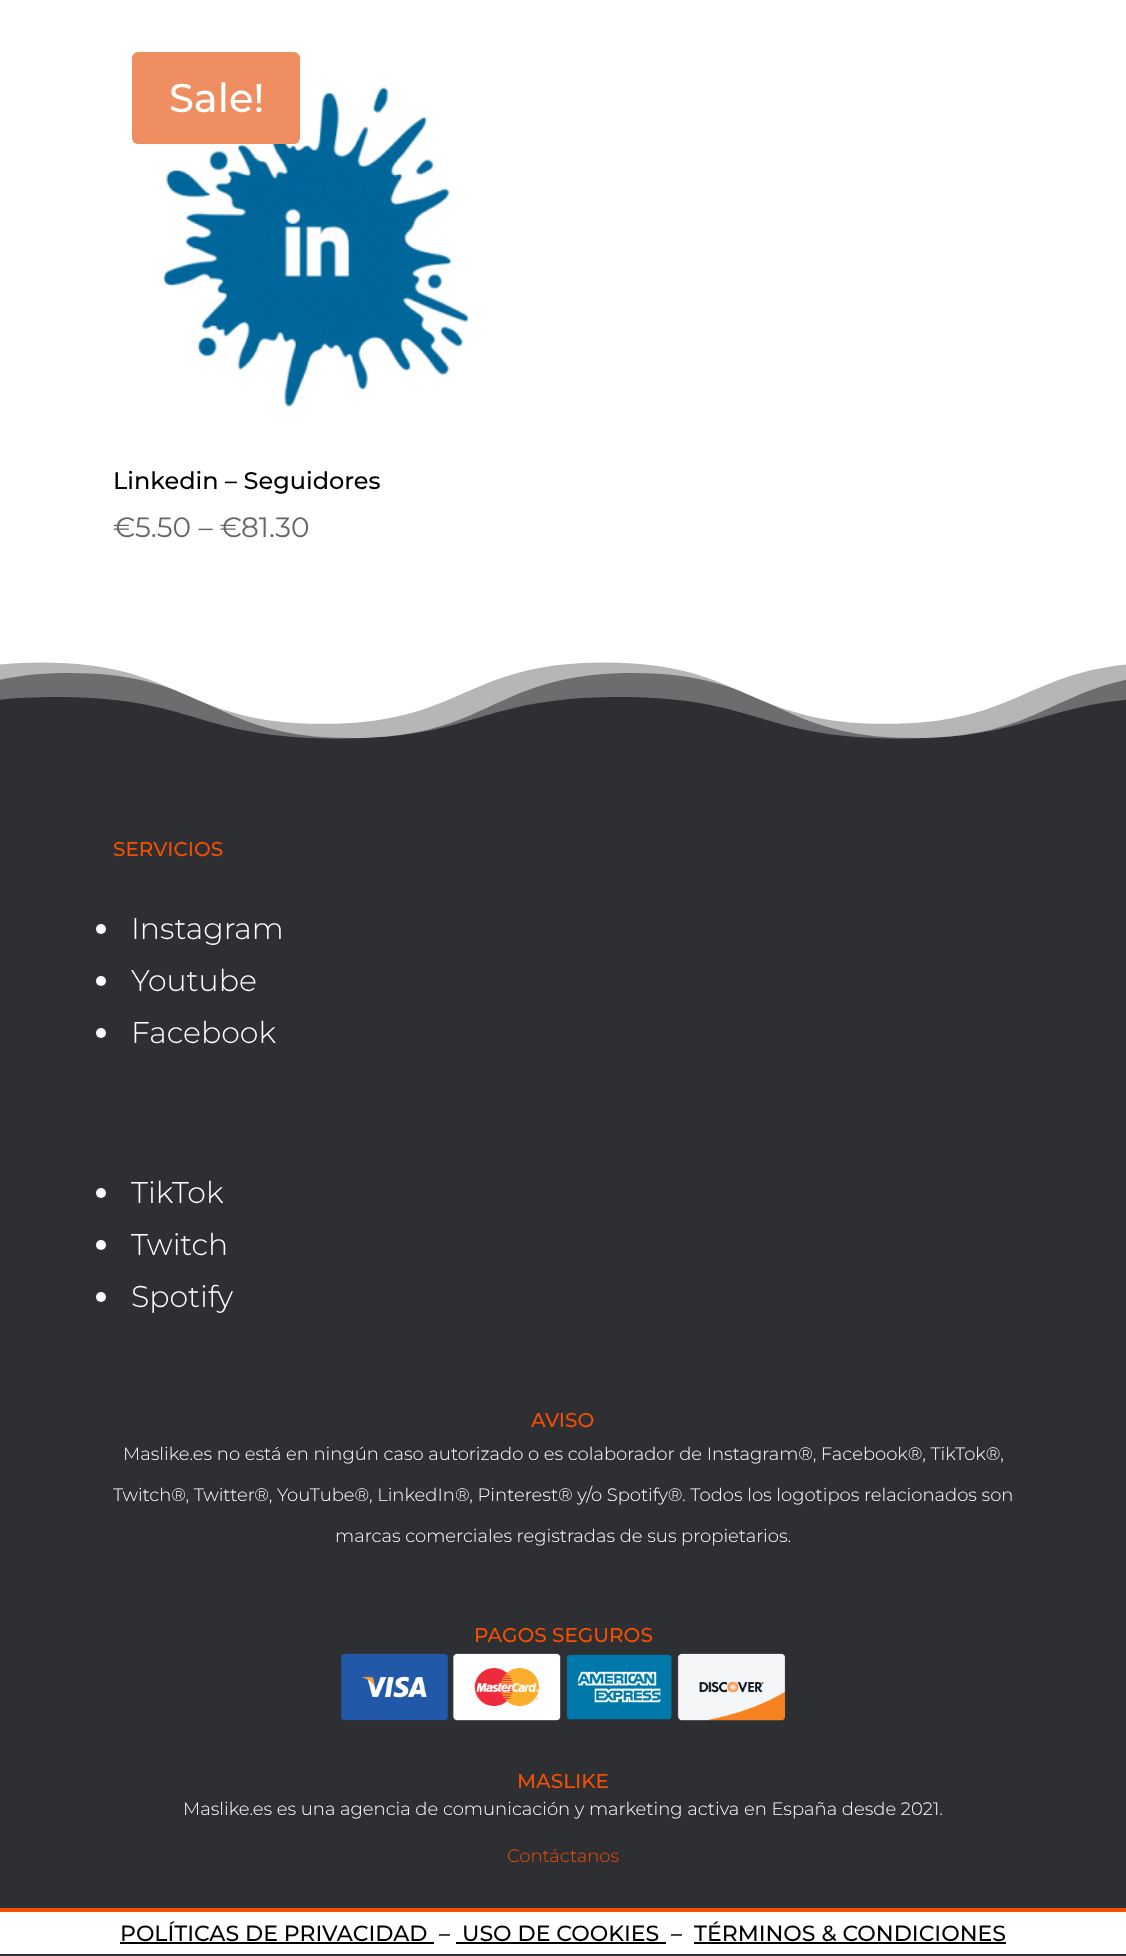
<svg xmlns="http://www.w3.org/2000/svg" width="1126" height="1956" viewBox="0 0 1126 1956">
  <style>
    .t1 { font: 100 40px Montserrat; fill: #fff; }
    .t2 { font: 100 24px Montserrat; fill: #000; }
    .t3 { font: 100 28px 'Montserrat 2'; fill: #666; }
    .t4 { font: 100 20px Montserrat; fill: #f54f02; }
    .t5 { font: 100 30px 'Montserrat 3'; fill: #fff; }
    .t6 { font: 100 18px 'Montserrat 3'; fill: #fff; }
    .t7 { font: 100 18px 'Montserrat 3'; fill: #f54f02; }
    .t8 { font: 100 22px Montserrat; fill: #000; }
  </style>
  <rect width="100%" height="100%" fill="#fff"/>
  <image x="163" y="87" width="306" height="321" href="images/1.png"/>
  <rect x="132" y="52" width="168" height="92" rx="6" fill="#ef8f61"/>
  <text x="169" y="112" class="t1">Sale!</text>
  <text x="113" y="489" class="t2">Linkedin – Seguidores</text>
  <text x="113" y="537" class="t3">€5.50 – €</text>
  <text x="241" y="537" class="t3">81.30</text>
  <rect x="0" y="662" width="1126" height="1246" fill="#2e2f33"/>
  <image x="0" y="662" width="1126" height="77" href="images/2.png"/>
  <text x="113" y="856" class="t4">SERVICIOS</text>
  <circle cx="101" cy="929" r="5" fill="#fff"/>
  <text x="131" y="939" class="t5">Instagram</text>
  <circle cx="101" cy="981" r="5" fill="#fff"/>
  <text x="131" y="991" class="t5">Youtube</text>
  <circle cx="101" cy="1033" r="5" fill="#fff"/>
  <text x="131" y="1043" class="t5">Facebook</text>
  <circle cx="101" cy="1193" r="5" fill="#fff"/>
  <text x="131" y="1203" class="t5">TikTok</text>
  <circle cx="101" cy="1245" r="5" fill="#fff"/>
  <text x="131" y="1255" class="t5">Twitch</text>
  <circle cx="101" cy="1297" r="5" fill="#fff"/>
  <text x="131" y="1307" class="t5">Spotify</text>
  <text x="531" y="1427" class="t4">AVISO</text>
  <text x="123" y="1460" class="t6">Maslike.es no está en ningún caso autorizado o es colaborador de Instagram®, Facebook®, TikTok®,</text>
  <text x="113" y="1501" class="t6">Twitch®, Twitter®, YouTube®, LinkedIn®, Pinterest® y/o Spotify®. Todos los logotipos relacionados son</text>
  <text x="335" y="1542" class="t6">marcas comerciales registradas de sus propietarios.</text>
  <text x="474" y="1642" class="t4">PAGOS SEGUROS</text>
  <image x="341" y="1653" width="445" height="68" href="images/3.png"/>
  <text x="517" y="1788" class="t4">MASLIKE</text>
  <text x="183" y="1815" class="t6">Maslike.es es una agencia de comunicación y marketing activa en España desde 2021.</text>
  <text x="507" y="1862" class="t7">Contáctanos</text>
  <rect x="0" y="1954" width="1126" height="2" fill="#2e2f33"/>
  <rect x="0" y="1908" width="1126" height="4" fill="#f54f02"/>
  <text x="120" y="1941" class="t8">POLÍTICAS DE PRIVACIDAD</text>
  <text x="439" y="1941" class="t8">–</text>
  <rect x="120" y="1942" width="314" height="2" fill="#000"/>
  <text x="462" y="1941" class="t8">USO DE COOKIES</text>
  <rect x="456" y="1942" width="210" height="2" fill="#000"/>
  <text x="671" y="1941" class="t8">–</text>
  <text x="694" y="1941" class="t8">TÉRMINOS &amp; CONDICIONES</text>
  <rect x="694" y="1942" width="312" height="2" fill="#000"/>
</svg>
